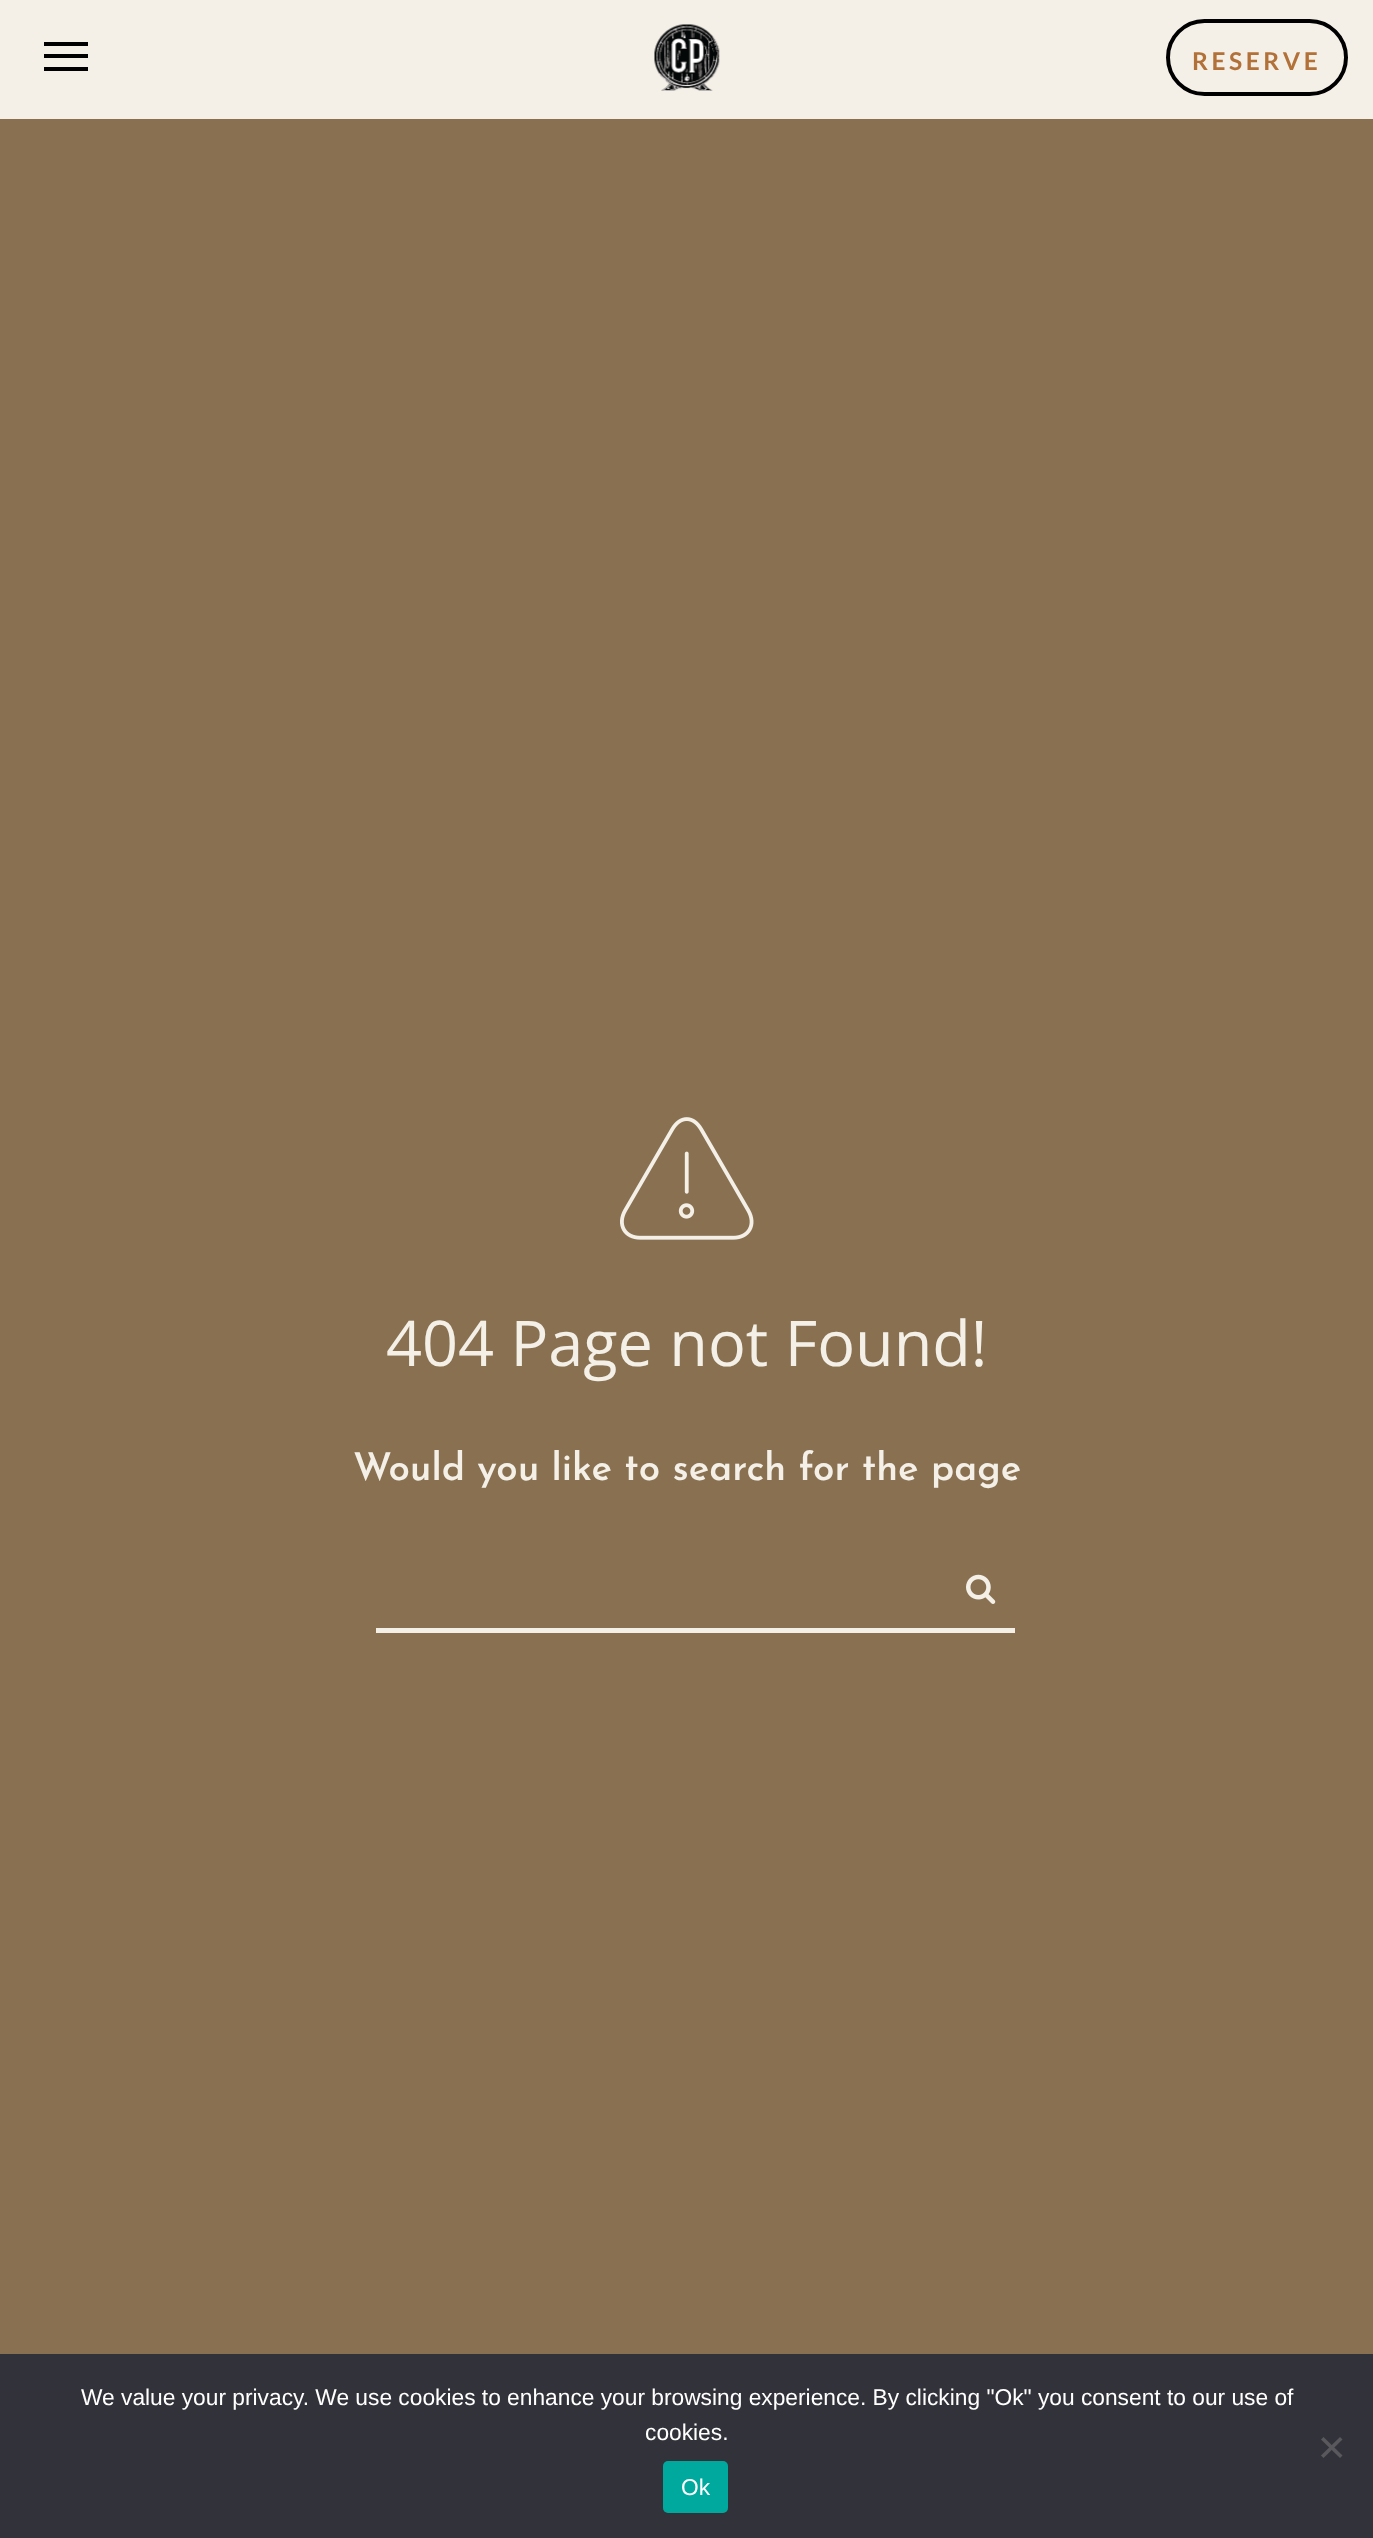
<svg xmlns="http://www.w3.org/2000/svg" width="1373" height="2538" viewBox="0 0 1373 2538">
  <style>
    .t1 { font: bold 24.5px Lato; letter-spacing: 3.5px; fill: #b3713a; }
    .t2 { font: 63px Open Sans; fill: #f4f0e7; }
    .t3 { font: 600 38.5px Josefin Sans; fill: #f4f0e7; }
    .t4 { font: 22.75px Liberation Sans; fill: #fff; }
  </style>
  <rect width="100%" height="100%" fill="#887050"/>
  <rect x="0" y="0" width="1373" height="119" fill="#f4f0e7"/>
  <image x="654" y="24" width="66" height="67" href="images/1.png"/>
  <rect x="44" y="54" width="44" height="4" fill="#000"/>
  <rect x="44" y="42" width="44" height="4" fill="#000"/>
  <rect x="44" y="67" width="44" height="4" fill="#000"/>
  <rect x="1168" y="21" width="178" height="73" rx="36.5" fill="none" stroke="#000" stroke-width="4"/>
  <text x="1192" y="70" class="t1">RESERVE</text>
  <image x="620" y="1117" width="134" height="123" href="images/2.png"/>
  <text x="386" y="1366" class="t2">404 Page not Found!</text>
  <text x="353" y="1480" class="t3">Would you like to search for the page</text>
  <image x="966" y="1574" width="30" height="30" href="images/3.png"/>
  <rect x="376" y="1628" width="639" height="5" fill="#f4f0e7"/>
  <rect x="0" y="2354" width="1373" height="184" fill="#32323a"/>
  <text x="81" y="2405" class="t4">We value your privacy. We use cookies to enhance your browsing experience. By clicking "Ok" you consent to our use of</text>
  <text x="645" y="2440" class="t4">cookies.</text>
  <path d="M1340 2437L1342.5 2439.5L1323.5 2458L1321 2455.5Z" fill="#59595d"/>
  <path d="M1321 2439.5L1323.5 2437L1342.5 2455.5L1340 2458Z" fill="#59595d"/>
  <rect x="663" y="2461" width="65" height="52" rx="5" fill="#00a99d"/>
  <text x="681" y="2495" class="t4">Ok</text>
</svg>
